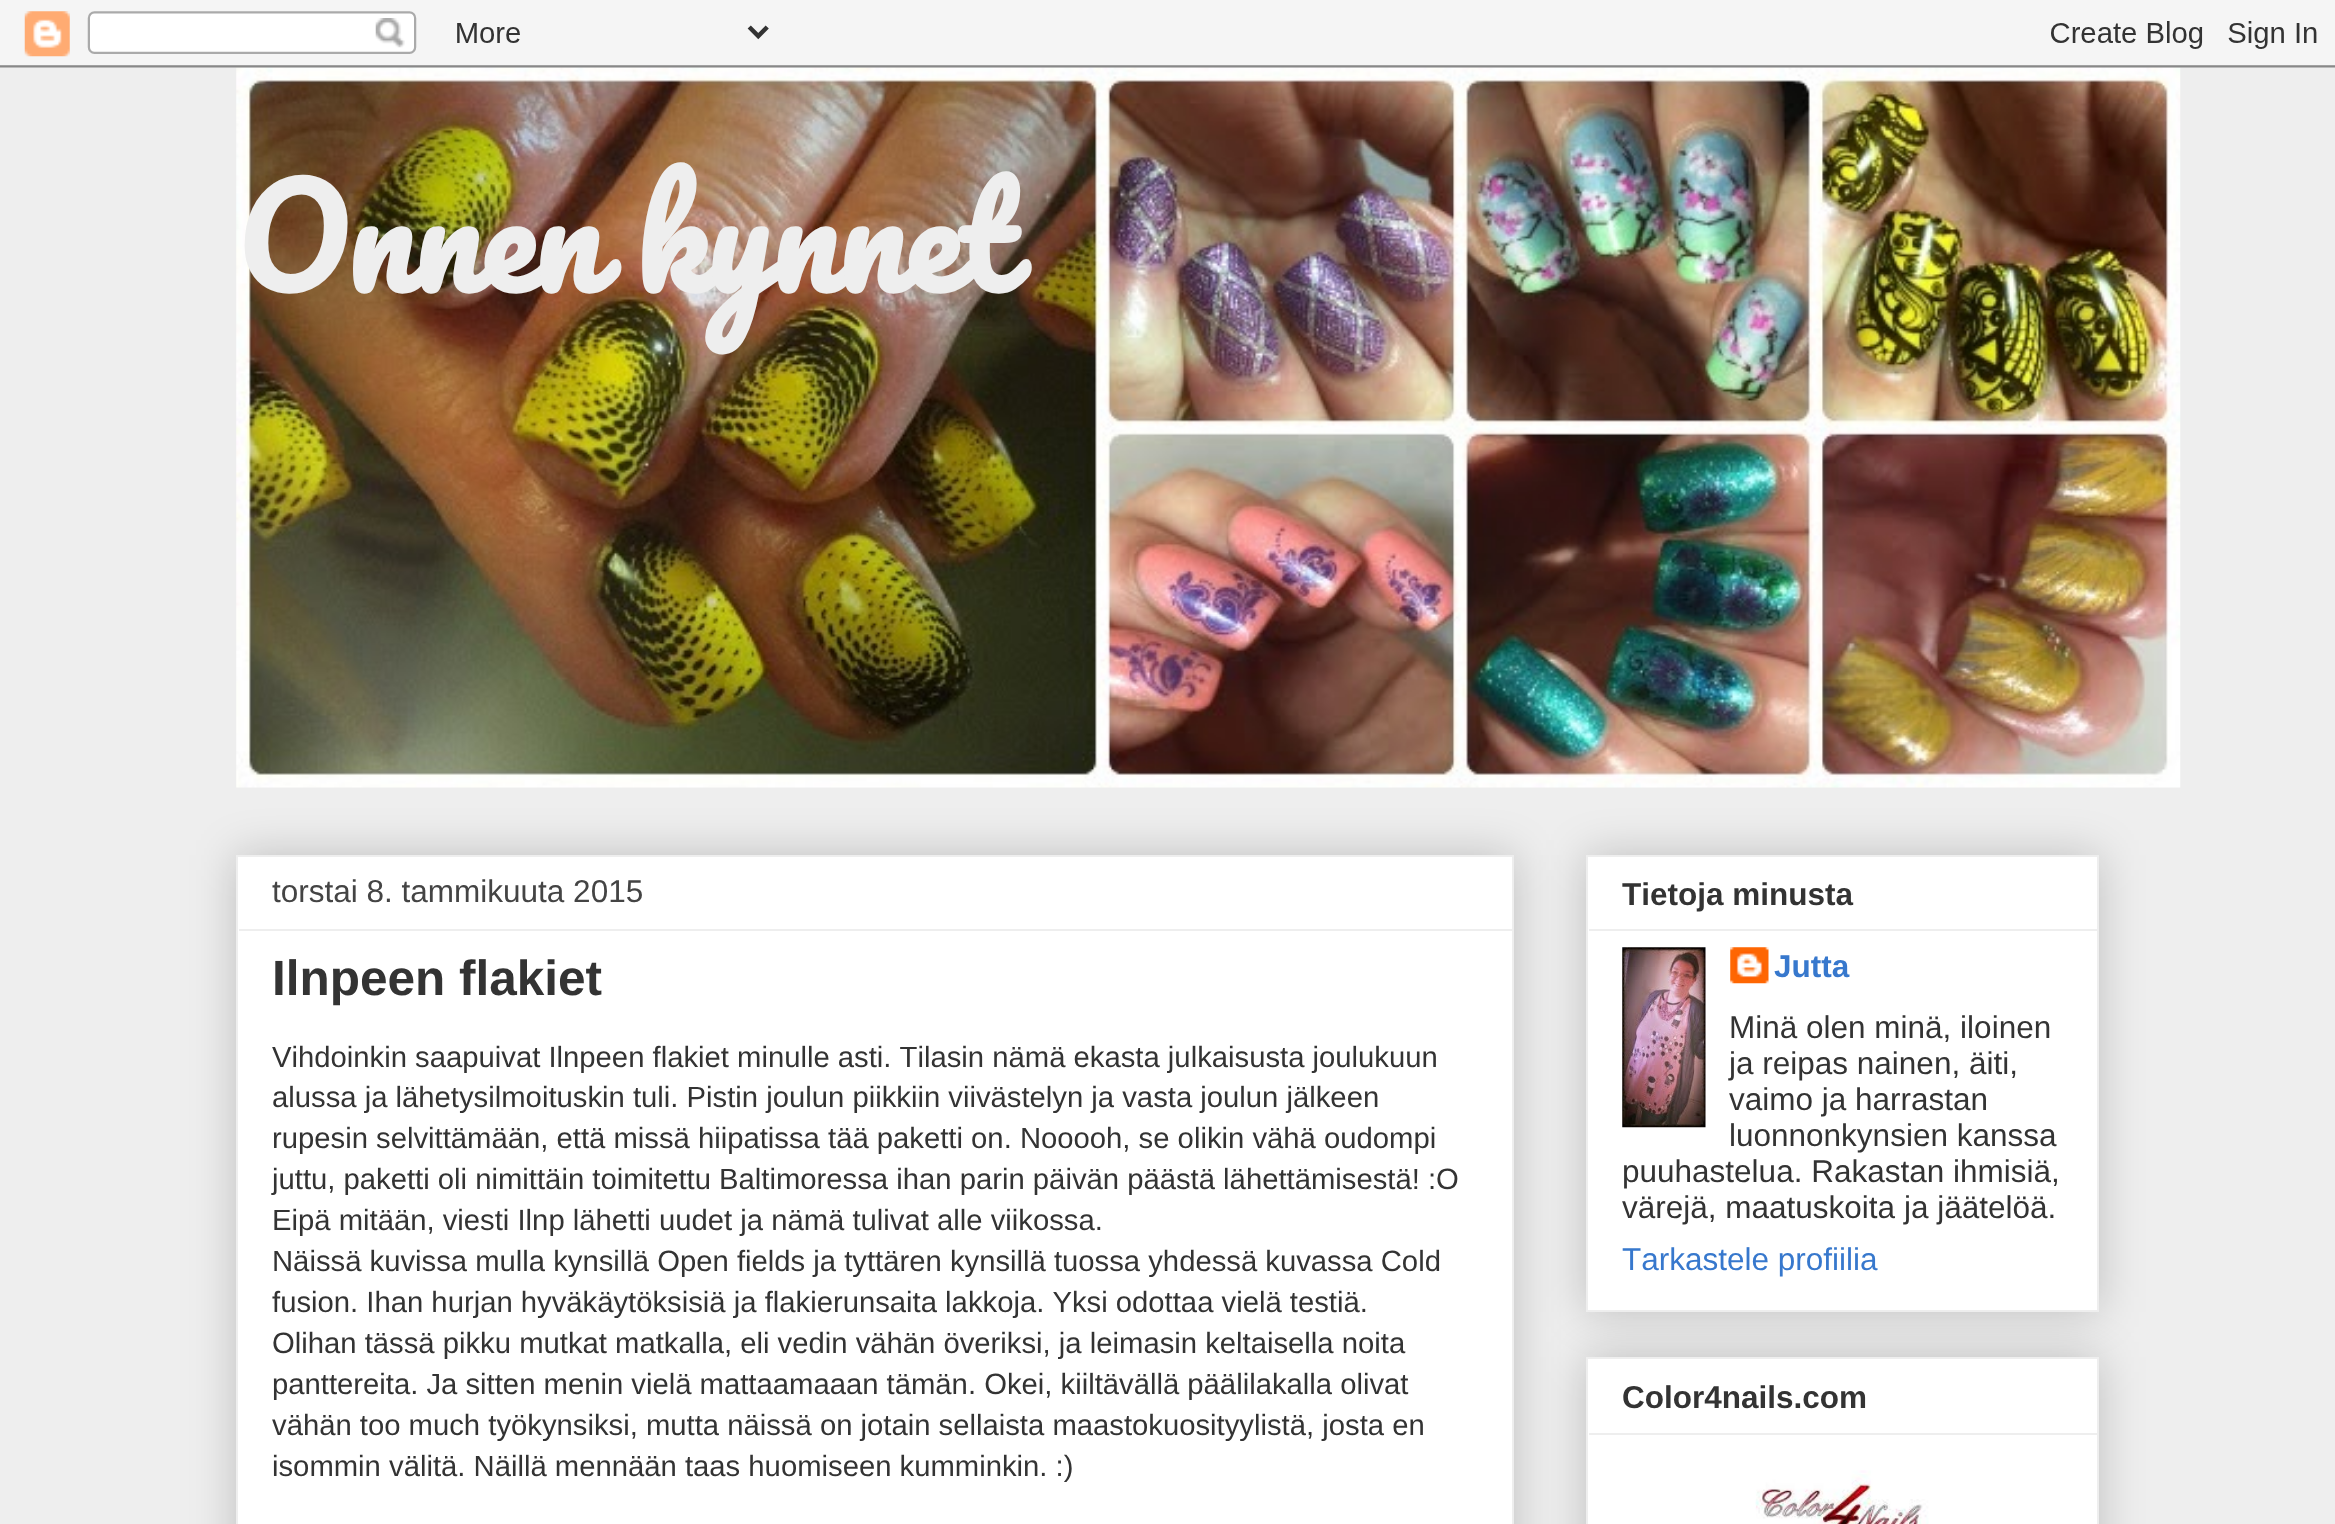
<svg xmlns="http://www.w3.org/2000/svg" width="2335" height="1524" viewBox="0 0 2335 1524">
  <style>*{font-kerning:none!important;font-variant-ligatures:none!important}</style>
  <style>
    .t1 { font: bold 135px Pacifico; fill: #eee; }
    .t2 { font: 31.5px Liberation Sans; fill: #444; }
    .t3 { font: bold 49.5px Liberation Sans; fill: #333; }
    .t4 { font: 29.25px Liberation Sans; fill: #333; }
    .t5 { font: bold 31.5px Liberation Sans; fill: #333; }
    .t6 { font: bold 31.5px Liberation Sans; fill: #3778cd; }
    .t7 { font: 31.5px Liberation Sans; fill: #333; }
    .t8 { font: 31.5px Liberation Sans; fill: #3778cd; }
  </style>
  <rect width="100%" height="100%" fill="#eee"/>
  <image x="236" y="67" width="1945" height="721" href="images/2.png"/>
  <image x="0" y="0" width="2335" height="68" href="images/1.png"/>
  <text x="236" y="293" word-spacing="-1" class="t1">Onnen kynnet</text>
  <rect x="236" y="855" width="1278" height="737" fill="#00000033" filter="blur(22.5px)"/>
  <rect x="237" y="856" width="1276" height="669" fill="#fff" stroke="#eee" stroke-width="2"/>
  <text x="272" y="902" class="t2">torstai 8. tammikuuta 2015</text>
  <rect x="239" y="929" width="1273" height="2" fill="#eee"/>
  <text x="272" y="995" class="t3">Ilnpeen flakiet</text>
  <text x="272" y="1067" class="t4">Vihdoinkin saapuivat Ilnpeen flakiet minulle asti. Tilasin nämä ekasta julkaisusta joulukuun</text>
  <text x="272" y="1107" class="t4">alussa ja lähetysilmoituskin tuli. Pistin joulun piikkiin viivästelyn ja vasta joulun jälkeen</text>
  <text x="272" y="1148" class="t4">rupesin selvittämään, että missä hiipatissa tää paketti on. Nooooh, se olikin vähä oudompi</text>
  <text x="272" y="1189" class="t4">juttu, paketti oli nimittäin toimitettu Baltimoressa ihan parin päivän päästä lähettämisestä! :O</text>
  <text x="272" y="1230" class="t4">Eipä mitään, viesti Ilnp lähetti uudet ja nämä tulivat alle viikossa.</text>
  <text x="272" y="1271" class="t4">Näissä kuvissa mulla kynsillä Open fields ja tyttären kynsillä tuossa yhdessä kuvassa Cold</text>
  <text x="272" y="1312" class="t4">fusion. Ihan hurjan hyväkäytöksisiä ja flakierunsaita lakkoja. Yksi odottaa vielä testiä.</text>
  <text x="272" y="1353" class="t4">Olihan tässä pikku mutkat matkalla, eli vedin vähän överiksi, ja leimasin keltaisella noita</text>
  <text x="272" y="1394" class="t4">panttereita. Ja sitten menin vielä mattaamaaan tämän. Okei, kiiltävällä päälilakalla olivat</text>
  <text x="272" y="1435" class="t4">vähän too much työkynsiksi, mutta näissä on jotain sellaista maastokuosityylistä, josta en</text>
  <text x="272" y="1476" class="t4">isommin välitä. Näillä mennään taas huomiseen kumminkin. :)</text>
  <rect x="1586" y="855" width="513" height="457" fill="#00000033" filter="blur(22.5px)"/>
  <rect x="1587" y="856" width="511" height="455" fill="#fff" stroke="#eee" stroke-width="2"/>
  <text x="1622" y="905" class="t5">Tietoja minusta</text>
  <rect x="1589" y="929" width="508" height="2" fill="#eee"/>
  <image x="1622" y="947" width="84" height="181" href="images/3.png"/>
  <image x="1730" y="947" width="39" height="37" href="images/4.png"/>
  <text x="1774" y="977" class="t6">Jutta</text>
  <text x="1729" y="1038" class="t7">Minä olen minä, iloinen</text>
  <text x="1729" y="1074" class="t7">ja reipas nainen, äiti,</text>
  <text x="1729" y="1110" class="t7">vaimo ja harrastan</text>
  <text x="1729" y="1146" class="t7">luonnonkynsien kanssa</text>
  <text x="1622" y="1182" class="t7">puuhastelua. Rakastan ihmisiä,</text>
  <text x="1622" y="1218" class="t7">värejä, maatuskoita ja jäätelöä.</text>
  <text x="1622" y="1270" class="t8">Tarkastele profiilia</text>
  <rect x="1586" y="1357" width="513" height="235" fill="#00000033" filter="blur(22.5px)"/>
  <rect x="1587" y="1358" width="511" height="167" fill="#fff" stroke="#eee" stroke-width="2"/>
  <text x="1622" y="1408" class="t5">Color4nails.com</text>
  <rect x="1589" y="1433" width="508" height="2" fill="#eee"/>
  <image x="1755" y="1470" width="174" height="54" href="images/5.png"/>
</svg>
